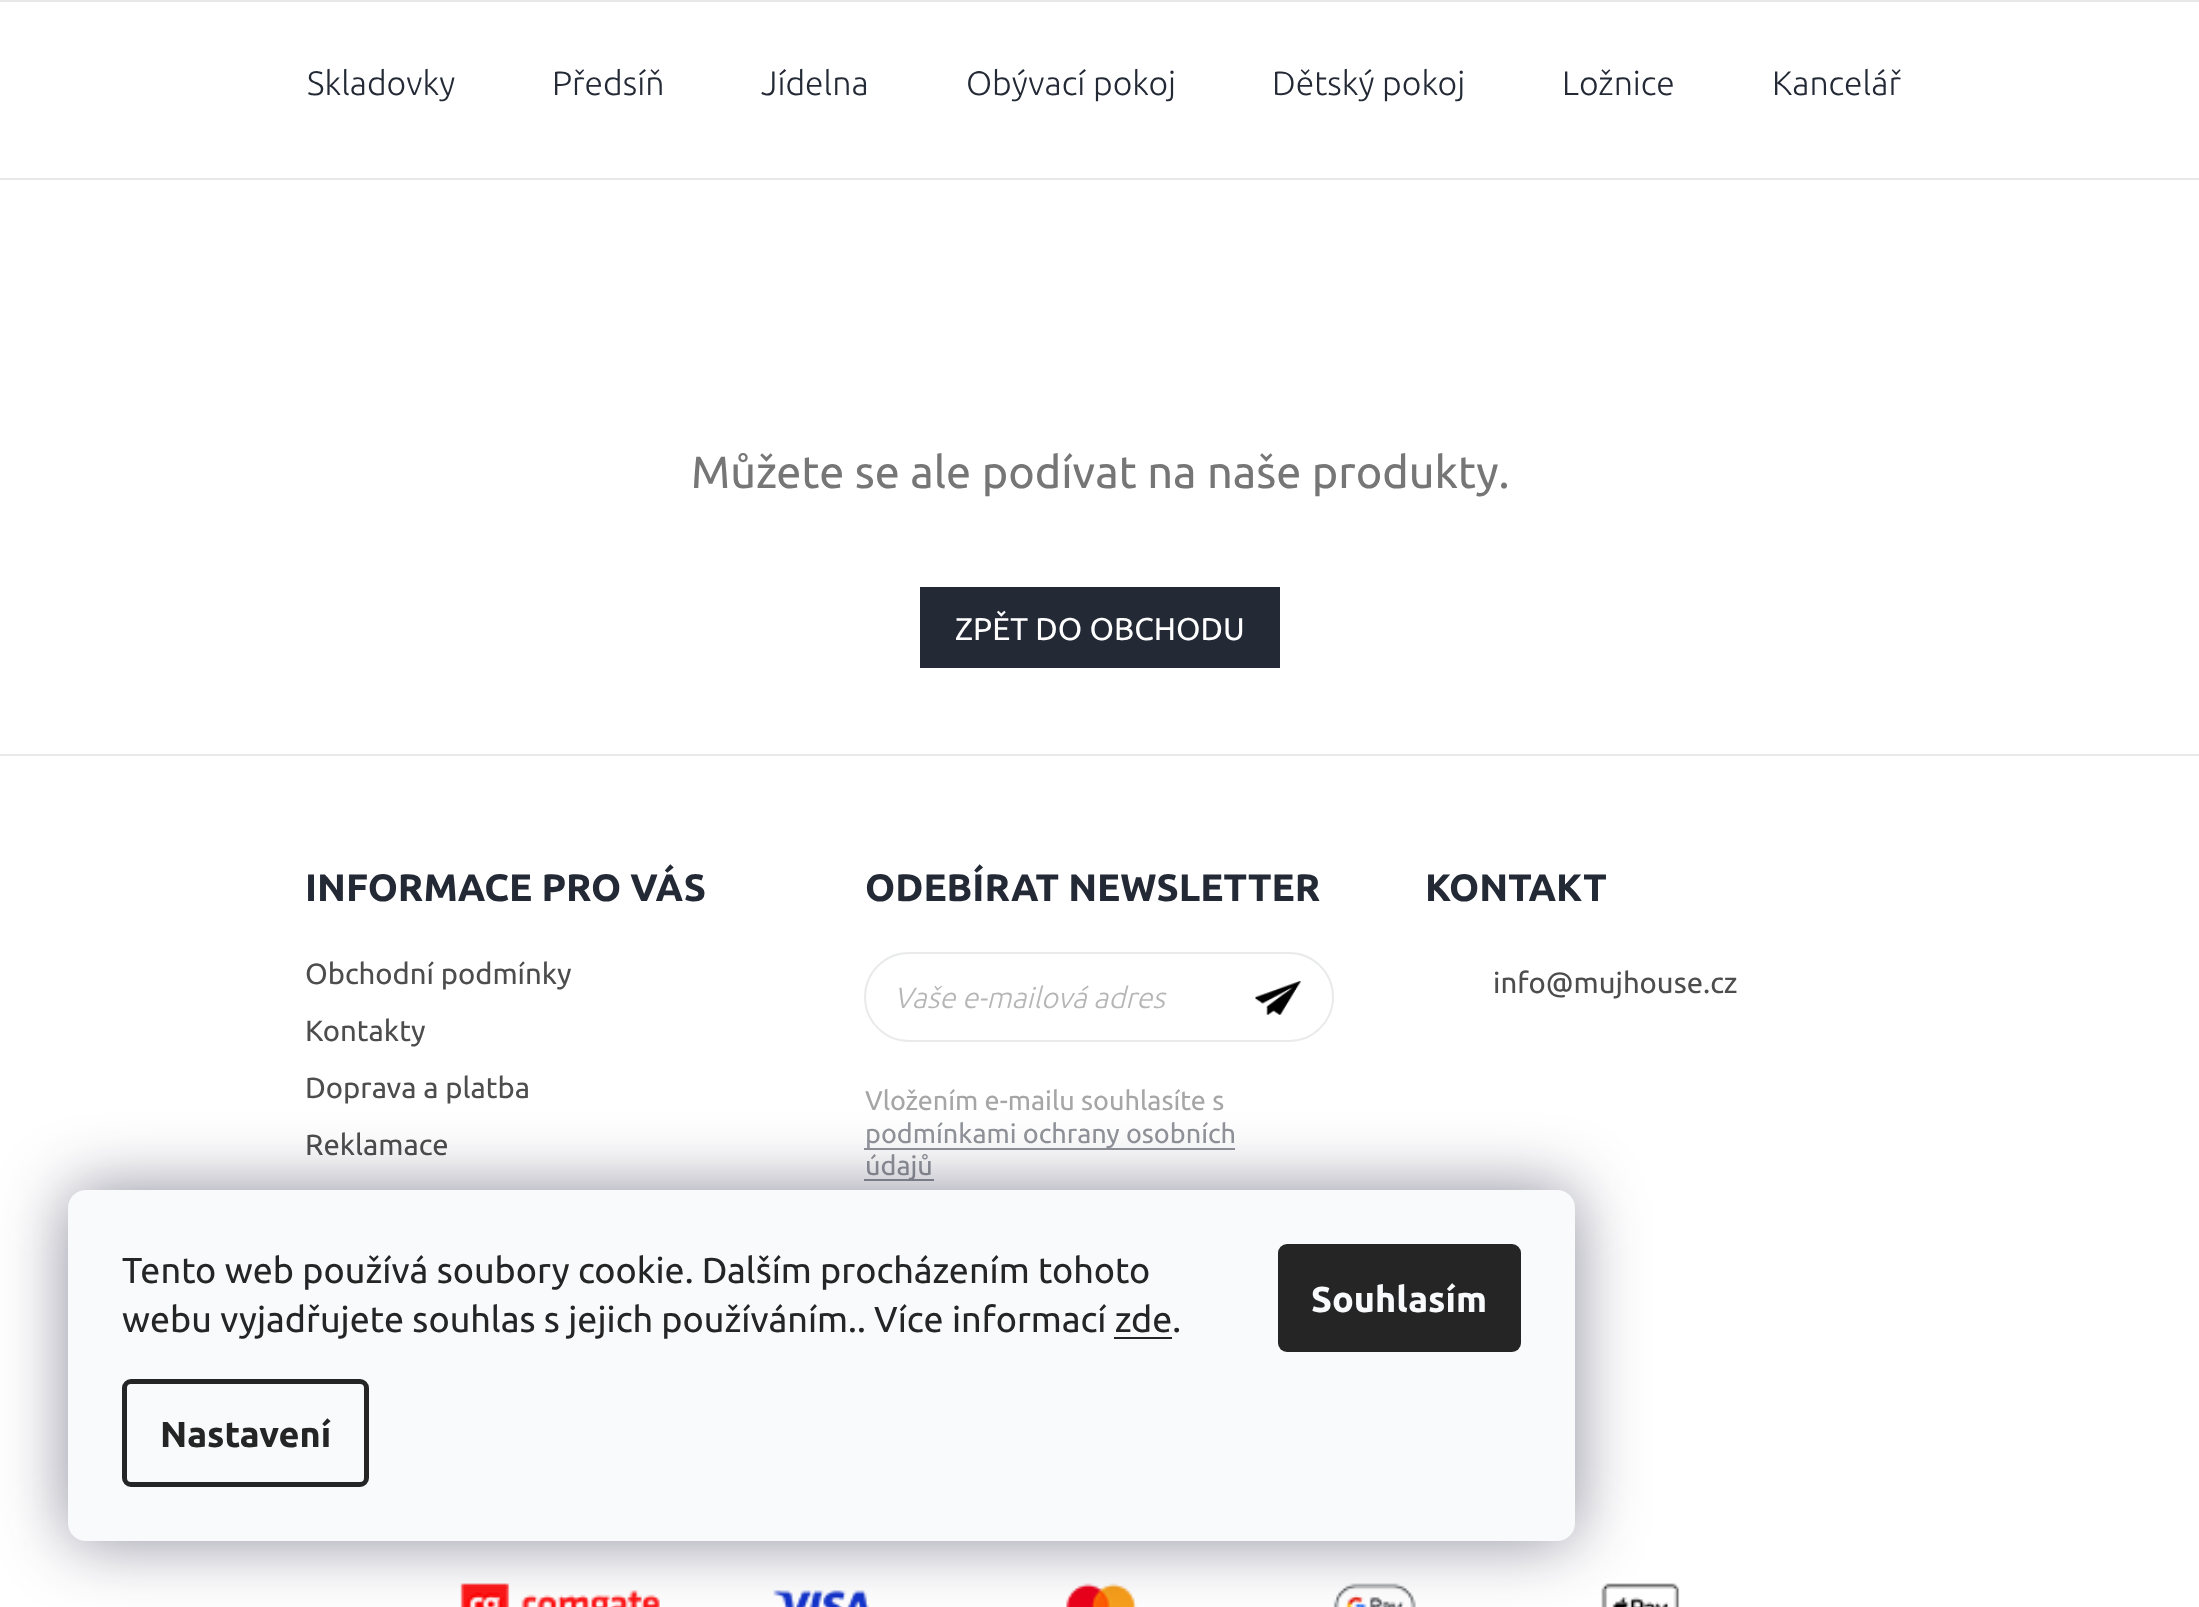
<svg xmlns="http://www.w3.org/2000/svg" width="2199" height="1607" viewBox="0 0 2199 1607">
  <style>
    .t1 { font: 300 33.75px Ubuntu; fill: #232935; }
    .t2 { font: 45px Ubuntu; fill: #767676; }
    .t3 { font: 31.5px Ubuntu; fill: #fff; }
    .t4 { font: bold 38.25px Ubuntu; fill: #232935; }
    .t5 { font: 29.25px Ubuntu; fill: #4d4d4d; }
    .t6 { font: italic 300 29.25px Ubuntu; fill: #b6b6b6; }
    .t7 { font: 27px Ubuntu; fill: #a6a6a6; }
    .t8 { font: 27px Ubuntu; fill: #91949a; }
    .t9 { font: 36px Ubuntu; fill: #252525; }
    .t10 { font: bold 36px Ubuntu; fill: #252525; }
    .t11 { font: bold 36px Ubuntu; fill: #f8fafb; }
  </style>
  <rect width="100%" height="100%" fill="#fff"/>
  <rect x="0" y="0" width="2199" height="2" fill="#e8e8e8"/>
  <rect x="0" y="178" width="2199" height="2" fill="#e8e8e8"/>
  <text x="307" y="95" class="t1">Skladovky</text>
  <text x="552" y="95" class="t1">Předsíň</text>
  <text x="761" y="95" class="t1">Jídelna</text>
  <text x="966" y="95" class="t1">Obývací pokoj</text>
  <text x="1272" y="95" class="t1">Dětský pokoj</text>
  <text x="1562" y="95" class="t1">Ložnice</text>
  <text x="1772" y="95" class="t1">Kancelář</text>
  <text x="691" y="488" class="t2">Můžete se ale podívat na naše produkty.</text>
  <rect x="920" y="587" width="360" height="81" fill="#232935"/>
  <text x="955" y="640" class="t3">ZPĚT DO OBCHODU</text>
  <rect x="0" y="754" width="2199" height="2" fill="#e9e9ea"/>
  <text x="305" y="901" class="t4">INFORMACE PRO VÁS</text>
  <text x="305" y="984" class="t5">Obchodní podmínky</text>
  <text x="305" y="1041" class="t5">Kontakty</text>
  <text x="305" y="1098" class="t5">Doprava a platba</text>
  <text x="305" y="1155" class="t5">Reklamace</text>
  <text x="865" y="901" class="t4">ODEBÍRAT NEWSLETTER</text>
  <rect x="865" y="953" width="468" height="88" rx="44" fill="none" stroke="#e9eaea" stroke-width="2"/>
  <text x="894" y="1008" class="t6">Vaše e-mailová adres</text>
  <image x="1255" y="981" width="46" height="34" href="images/1.png"/>
  <text x="865" y="1110" class="t7">Vložením e-mailu souhlasíte s</text>
  <rect x="864" y="1148" width="371" height="2" fill="#91949a"/>
  <text x="865" y="1143" class="t8">podmínkami ochrany osobních</text>
  <rect x="864" y="1179" width="70" height="2" fill="#91949a"/>
  <text x="865" y="1175" class="t8">údajů</text>
  <text x="1425" y="901" class="t4">KONTAKT</text>
  <text x="1493" y="993" class="t5">info@mujhouse.cz</text>
  <image x="460" y="1583" width="200" height="24" href="images/2.png"/>
  <image x="773" y="1590" width="96" height="17" href="images/3.png"/>
  <image x="1066" y="1583" width="71" height="24" href="images/4.png"/>
  <image x="1333" y="1583" width="83" height="24" href="images/5.png"/>
  <image x="1601" y="1583" width="79" height="24" href="images/6.png"/>
  <rect x="68" y="1190" width="1507" height="351" rx="18" fill="#1b193980" filter="blur(34px)"/>
  <rect x="68" y="1190" width="1507" height="351" rx="18" fill="#f8fafb"/>
  <text x="122" y="1283" class="t9">Tento web používá soubory cookie. Dalším procházením tohoto</text>
  <text x="122" y="1332" class="t9">webu vyjadřujete souhlas s jejich používáním.. Více informací zde.</text>
  <rect x="1114" y="1337" width="58" height="2" fill="#252525"/>
  <rect x="124.5" y="1381.5" width="242" height="103" rx="6.5" fill="none" stroke="#252525" stroke-width="5"/>
  <text x="160" y="1447" class="t10">Nastavení</text>
  <rect x="1278" y="1244" width="243" height="108" rx="9" fill="#252525"/>
  <text x="1311" y="1312" class="t11">Souhlasím</text>
</svg>
